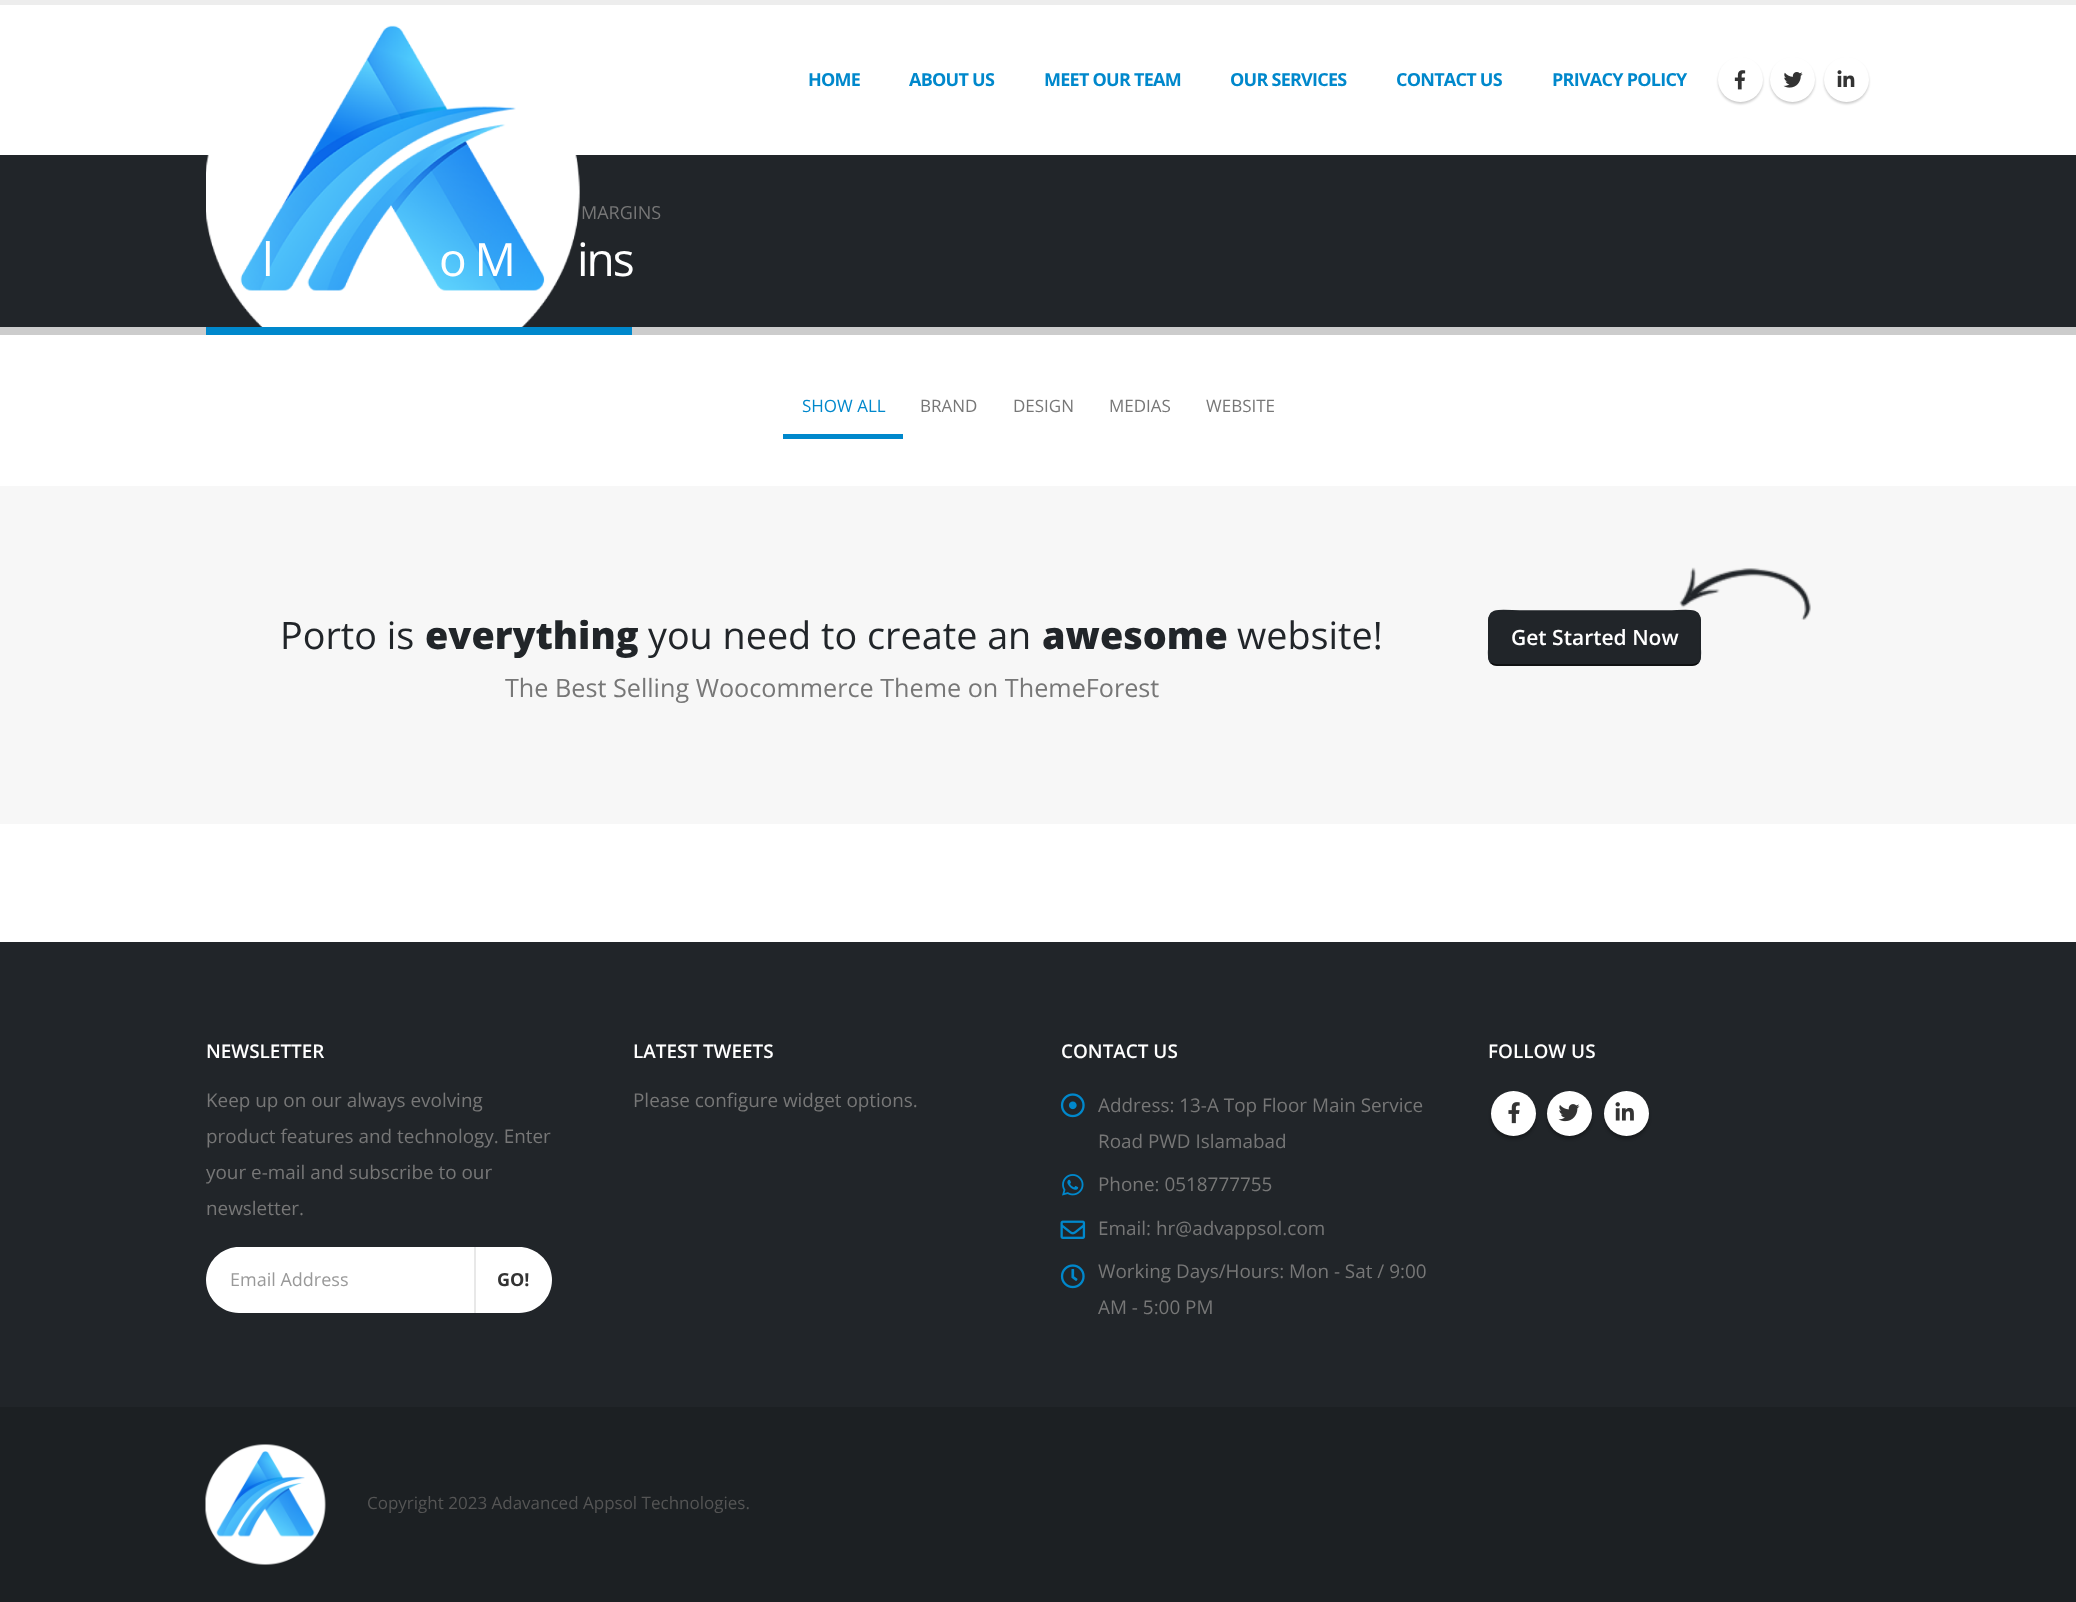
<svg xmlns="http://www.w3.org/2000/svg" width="2076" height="1602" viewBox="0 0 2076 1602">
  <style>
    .t1 { font: bold 18px Open Sans; letter-spacing: -0.75px; fill: #08c; }
    .t2 { font: 18px Open Sans; fill: #777; }
    .t3 { font: 46px Open Sans; letter-spacing: -2px; fill: #fff; }
    .t4 { font: 17px Open Sans; fill: #08c; }
    .t5 { font: 17px Open Sans; fill: #777; }
    .t6 { font: 37.75px Open Sans; fill: #212529; }
    .t7 { font: 800 37.75px Open Sans; fill: #212529; }
    .t8 { font: 25.2px Open Sans; fill: #777; }
    .t9 { font: 600 21px Open Sans; fill: #fff; }
    .t10 { font: 600 18.9px Open Sans; fill: #fff; }
    .t11 { font: 18.9px Open Sans; fill: #777; }
    .t12 { font: 18px Open Sans; fill: #999; }
    .t13 { font: bold 18px Open Sans; fill: #333; }
    .t14 { font: 17px Open Sans; fill: #555; }
  </style>
  <rect width="100%" height="100%" fill="#fff"/>
  <rect x="0" y="0" width="2076" height="5" fill="#ededed"/>
  <rect x="0" y="155" width="2076" height="172" fill="#212529"/>
  <image x="206" y="25" width="374" height="302" href="images/1.png"/>
  <text x="808" y="86" class="t1">HOME</text>
  <text x="909" y="86" class="t1">ABOUT US</text>
  <text x="1044" y="86" class="t1">MEET OUR TEAM</text>
  <text x="1230" y="86" class="t1">OUR SERVICES</text>
  <text x="1396" y="86" class="t1">CONTACT US</text>
  <text x="1552" y="86" class="t1">PRIVACY POLICY</text>
  <rect x="1718" y="59" width="45" height="45" rx="22.5" fill="#00000033" filter="blur(1px)"/>
  <circle cx="1740.5" cy="79.5" r="22.5" fill="#fff"/>
  <image x="1734" y="70" width="12" height="20" href="images/2.png"/>
  <rect x="1770" y="59" width="45" height="45" rx="22.5" fill="#00000033" filter="blur(1px)"/>
  <circle cx="1792.5" cy="79.5" r="22.5" fill="#fff"/>
  <image x="1783" y="72" width="20" height="16" href="images/3.png"/>
  <rect x="1824" y="59" width="45" height="45" rx="22.5" fill="#00000033" filter="blur(1px)"/>
  <circle cx="1846.5" cy="79.5" r="22.5" fill="#fff"/>
  <image x="1837" y="70" width="18" height="17" href="images/4.png"/>
  <rect x="0" y="327" width="2076" height="8" fill="#ccc"/>
  <text x="581" y="219" class="t2">MARGINS</text>
  <text x="262" y="276" class="t3">l</text>
  <text x="439" y="276" class="t3">o M</text>
  <text x="577" y="276" class="t3">ins</text>
  <rect x="206" y="327" width="426" height="8" fill="#08c"/>
  <rect x="783" y="434" width="120" height="5" fill="#08c"/>
  <text x="802" y="412" class="t4">SHOW ALL</text>
  <text x="920" y="412" class="t5">BRAND</text>
  <text x="1013" y="412" class="t5">DESIGN</text>
  <text x="1109" y="412" class="t5">MEDIAS</text>
  <text x="1206" y="412" class="t5">WEBSITE</text>
  <rect x="0" y="486" width="2076" height="338" fill="#f7f7f7"/>
  <text x="280" y="649" class="t6">Porto is</text>
  <text x="425" y="649" class="t7">everything</text>
  <text x="648" y="649" class="t6">you need to create an</text>
  <text x="1042" y="649" class="t7">awesome</text>
  <text x="1237" y="649" class="t6">website!</text>
  <text x="505" y="697" class="t8">The Best Selling Woocommerce Theme on ThemeForest</text>
  <rect x="1488" y="611" width="213" height="55" rx="9" fill="#212529"/>
  <path d="M1698 663C1696.5 664.5 1694 665 1692 665H1497C1495 665 1492.5 664.5 1491 663" fill="none" stroke="#0b0c0d" stroke-width="1.5"/>
  <path d="M1491 663C1487 658.5 1489 649.5 1489 644.5C1489 604 1484 611 1529.5 611H1659.5C1705 611 1700 604 1700 644.5C1700 649.5 1702 658.5 1698 663" fill="none" stroke="#212529" stroke-width="1.5"/>
  <image x="1679" y="567" width="132" height="53" href="images/5.png"/>
  <text x="1511" y="645" class="t9">Get Started Now</text>
  <rect x="0" y="942" width="2076" height="465" fill="#212529"/>
  <text x="206" y="1058" class="t10">NEWSLETTER</text>
  <text x="206" y="1107" class="t11">Keep up on our always evolving</text>
  <text x="206" y="1143" class="t11">product features and technology. Enter</text>
  <text x="206" y="1179" class="t11">your e-mail and subscribe to our</text>
  <text x="206" y="1215" class="t11">newsletter.</text>
  <path d="M474 1247H519C537 1247 552 1262 552 1280C552 1298 537 1313 519 1313H474Z" fill="#fff"/>
  <path d="M239 1247H476V1313H239C221 1313 206 1298 206 1280C206 1262 221 1247 239 1247Z" fill="#fff"/>
  <rect x="474" y="1247" width="2" height="66" fill="#e8e8e8"/>
  <text x="230" y="1286" class="t12">Email Address</text>
  <text x="497" y="1286" class="t13">GO!</text>
  <text x="633" y="1058" class="t10">LATEST TWEETS</text>
  <text x="633" y="1107" class="t11">Please configure widget options.</text>
  <text x="1061" y="1058" class="t10">CONTACT US</text>
  <image x="1060" y="1093" width="25" height="25" href="images/6.png"/>
  <text x="1098" y="1112" class="t11">Address: 13-A Top Floor Main Service</text>
  <text x="1098" y="1148" class="t11">Road PWD Islamabad</text>
  <image x="1062" y="1174" width="22" height="22" href="images/7.png"/>
  <text x="1098" y="1191" class="t11">Phone: 0518777755</text>
  <image x="1060" y="1220" width="26" height="19" href="images/8.png"/>
  <text x="1098" y="1235" class="t11">Email: hr@advappsol.com</text>
  <image x="1060" y="1264" width="25" height="25" href="images/9.png"/>
  <text x="1098" y="1278" class="t11">Working Days/Hours: Mon - Sat / 9:00</text>
  <text x="1098" y="1314" class="t11">AM - 5:00 PM</text>
  <text x="1488" y="1058" class="t10">FOLLOW US</text>
  <rect x="1491" y="1094" width="45" height="45" rx="22.5" fill="#0000004d" filter="blur(1.5px)"/>
  <circle cx="1513.5" cy="1113.5" r="22.5" fill="#fff"/>
  <image x="1508" y="1102" width="12" height="22" href="images/10.png"/>
  <rect x="1547" y="1094" width="45" height="45" rx="22.5" fill="#0000004d" filter="blur(1.5px)"/>
  <circle cx="1569.5" cy="1113.5" r="22.5" fill="#fff"/>
  <image x="1558" y="1104" width="22" height="18" href="images/11.png"/>
  <rect x="1604" y="1094" width="45" height="45" rx="22.5" fill="#0000004d" filter="blur(1.5px)"/>
  <circle cx="1626.5" cy="1113.5" r="22.5" fill="#fff"/>
  <image x="1615" y="1102" width="19" height="19" href="images/12.png"/>
  <rect x="0" y="1407" width="2076" height="195" fill="#1c2023"/>
  <image x="205" y="1444" width="121" height="121" href="images/13.png"/>
  <text x="367" y="1509" class="t14">Copyright 2023 Adavanced Appsol Technologies.</text>
</svg>
